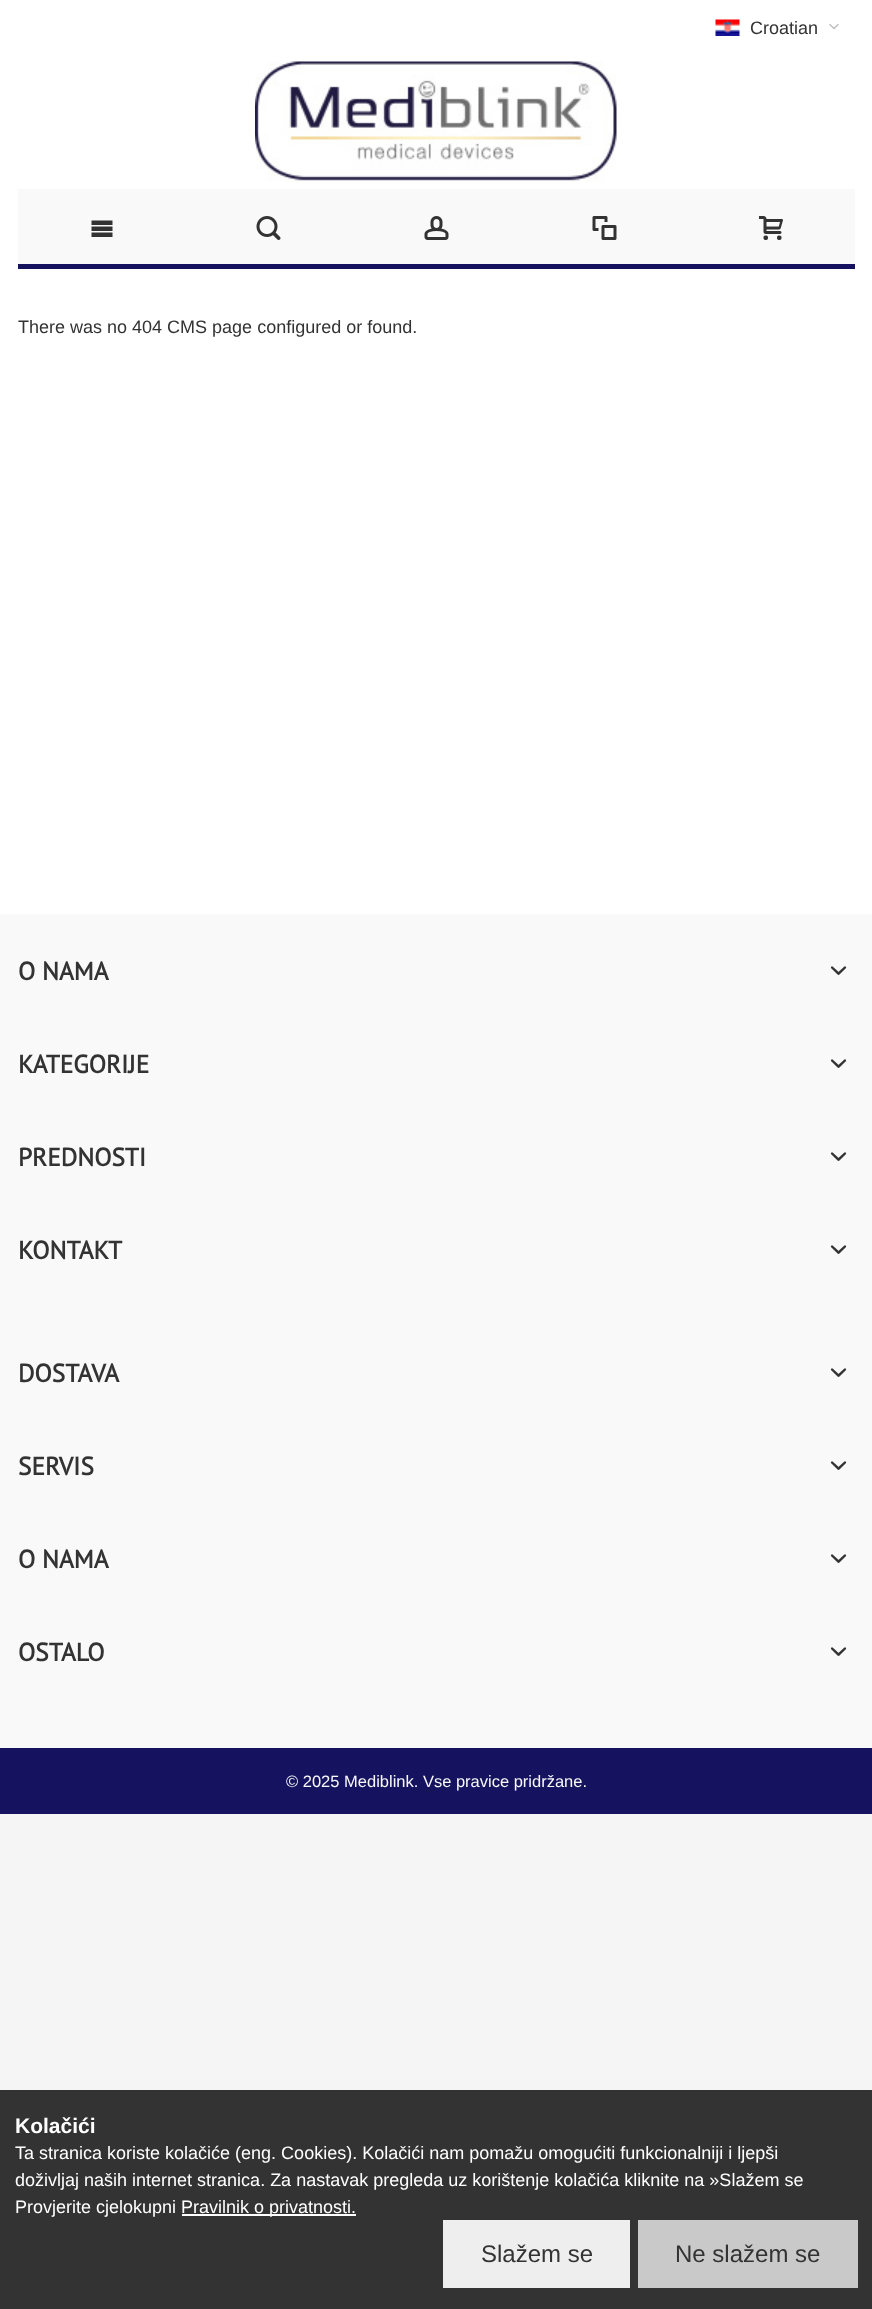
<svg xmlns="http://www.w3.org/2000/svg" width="872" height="2309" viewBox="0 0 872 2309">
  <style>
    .t1 { font: 18px Liberation Sans; fill: #333; }
    .t2 { font: bold 25.25px PT Sans; fill: #333; }
    .t3 { font: 16.5px Liberation Sans; fill: #f9f9f9; }
    .t4 { font: bold 21px Liberation Sans; fill: #fff; }
    .t5 { font: 18px Liberation Sans; fill: #fff; }
    .t6 { font: 24px Liberation Sans; fill: #333; }
  </style>
  <rect width="100%" height="100%" fill="#f5f5f5"/>
  <rect x="0" y="0" width="872" height="914" fill="#fff"/>
  <image x="715" y="19" width="25" height="17" href="images/1.png"/>
  <text x="750" y="34" class="t1">Croatian</text>
  <image x="829" y="24" width="10" height="6" href="images/2.png"/>
  <image x="255" y="61" width="362" height="121" href="images/3.png"/>
  <rect x="18" y="264" width="837" height="5" fill="#15135f"/>
  <rect x="18" y="189" width="837" height="75" fill="#f9f9f9"/>
  <image x="91" y="220" width="22" height="17" href="images/4.png"/>
  <image x="256" y="216" width="25" height="24" href="images/5.png"/>
  <image x="424" y="216" width="25" height="24" href="images/6.png"/>
  <image x="592" y="216" width="25" height="24" href="images/7.png"/>
  <image x="759" y="216" width="24" height="24" href="images/8.png"/>
  <text x="18" y="333" class="t1">There was no 404 CMS page configured or found.</text>
  <rect x="0" y="914" width="872" height="834" fill="#f9f9f9"/>
  <text x="18" y="980" class="t2">O NAMA</text>
  <image x="830" y="966" width="17" height="9" href="images/9.png"/>
  <text x="18" y="1073" class="t2">KATEGORIJE</text>
  <image x="830" y="1059" width="17" height="9" href="images/9.png"/>
  <text x="18" y="1166" class="t2">PREDNOSTI</text>
  <image x="830" y="1152" width="17" height="9" href="images/9.png"/>
  <text x="18" y="1259" class="t2">KONTAKT</text>
  <image x="830" y="1245" width="17" height="9" href="images/9.png"/>
  <text x="18" y="1382" class="t2">DOSTAVA</text>
  <image x="830" y="1368" width="17" height="9" href="images/9.png"/>
  <text x="18" y="1475" class="t2">SERVIS</text>
  <image x="830" y="1461" width="17" height="9" href="images/9.png"/>
  <text x="18" y="1568" class="t2">O NAMA</text>
  <image x="830" y="1554" width="17" height="9" href="images/9.png"/>
  <text x="18" y="1661" class="t2">OSTALO</text>
  <image x="830" y="1647" width="17" height="9" href="images/9.png"/>
  <rect x="0" y="1748" width="872" height="66" fill="#15135f"/>
  <text x="286" y="1787" class="t3">© 2025 Mediblink. Vse pravice pridržane.</text>
  <rect x="0" y="2090" width="872" height="219" fill="#333"/>
  <text x="15" y="2133" class="t4">Kolačići</text>
  <text x="15" y="2159" class="t5">Ta stranica koriste kolačiće (eng. Cookies). Kolačići nam pomažu omogućiti funkcionalniji i ljepši</text>
  <text x="15" y="2186" class="t5">doživljaj naših internet stranica. Za nastavak pregleda uz korištenje kolačića kliknite na »Slažem se</text>
  <text x="15" y="2213" class="t5">Provjerite cjelokupni</text>
  <rect x="182" y="2214" width="174" height="2" fill="#fff"/>
  <text x="181" y="2213" class="t5">Pravilnik o privatnosti.</text>
  <rect x="443" y="2220" width="187" height="68" fill="#eee"/>
  <text x="481" y="2262" class="t6">Slažem se</text>
  <rect x="638" y="2220" width="220" height="68" fill="#c9c9c9"/>
  <text x="675" y="2262" class="t6">Ne slažem se</text>
</svg>
